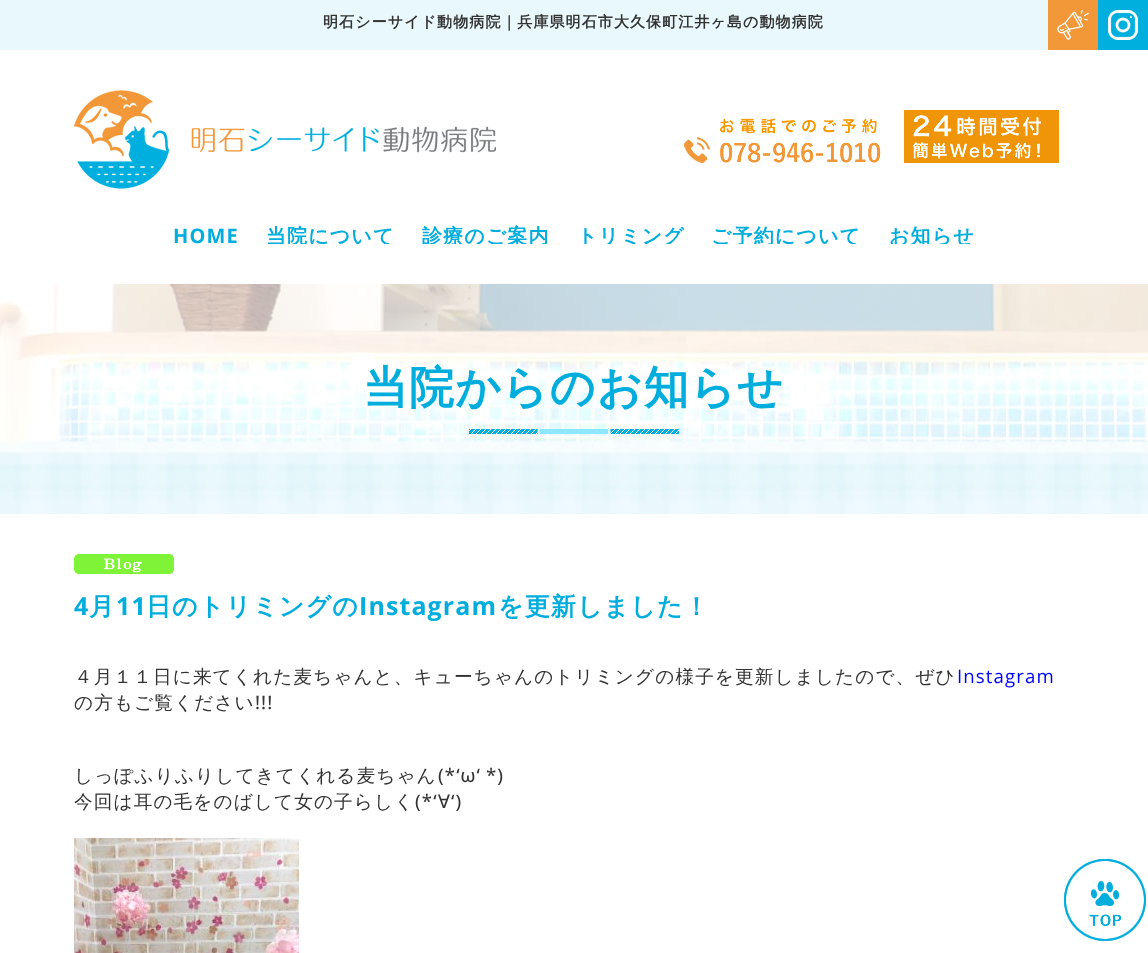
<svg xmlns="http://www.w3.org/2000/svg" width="1148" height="953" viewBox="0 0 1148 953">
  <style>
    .t1 { font: bold 15px WenQuanYi Zen Hei; letter-spacing: 1.1px; fill: #333; }
    .t2 { font: bold 20px Open Sans; letter-spacing: 1.1px; fill: #00addd; }
    .t3 { font: bold 20px WenQuanYi Zen Hei; letter-spacing: 1.1px; fill: #00addd; }
    .t4 { font: bold 45px WenQuanYi Zen Hei; letter-spacing: 1.1px; fill: #00addd; }
    .t5 { font: bold 25px Open Sans; letter-spacing: 1.1px; fill: #00addd; }
    .t6 { font: bold 25px WenQuanYi Zen Hei; letter-spacing: 1.1px; fill: #00addd; }
    .t7 { font: 500 18.65px WenQuanYi Zen Hei; letter-spacing: 1.1px; fill: #333; }
    .t8 { font: 18.65px Open Sans; letter-spacing: 1.1px; fill: #00f; }
    .t9 { font: 500 18.65px Open Sans; letter-spacing: 1.1px; fill: #333; }
  </style>
  <defs>
    <clipPath id="clip1"><rect x="260" y="224" width="141" height="20"/></clipPath>
    <clipPath id="clip2"><rect x="416" y="224" width="140" height="20"/></clipPath>
    <clipPath id="clip3"><rect x="571" y="224" width="119" height="20"/></clipPath>
    <clipPath id="clip4"><rect x="705" y="224" width="163" height="20"/></clipPath>
    <clipPath id="clip5"><rect x="883" y="224" width="98" height="20"/></clipPath>
  </defs>
  <rect width="100%" height="100%" fill="#fff"/>
  <rect x="0" y="0" width="1048" height="50" fill="#e9f8fc"/>
  <text x="323" y="27" class="t1">明石シーサイド動物病院｜兵庫県明石市大久保町江井ヶ島の動物病院</text>
  <image x="1048" y="0" width="50" height="50" href="images/1.png"/>
  <image x="1098" y="0" width="50" height="50" href="images/2.png"/>
  <image x="74" y="90" width="422" height="99" href="images/3.png"/>
  <image x="684" y="118" width="197" height="45" href="images/4.png"/>
  <image x="904" y="110" width="155" height="53" href="images/5.png"/>
  <text x="173" y="243" class="t2">HOME</text>
  <g clip-path="url(#clip1)">
    <text x="266" y="243" class="t3">当院について</text>
  </g>
  <g clip-path="url(#clip2)">
    <text x="422" y="243" class="t3">診療のご案内</text>
  </g>
  <g clip-path="url(#clip3)">
    <text x="577" y="243" class="t3">トリミング</text>
  </g>
  <g clip-path="url(#clip4)">
    <text x="711" y="243" class="t3">ご予約について</text>
  </g>
  <g clip-path="url(#clip5)">
    <text x="889" y="243" class="t3">お知らせ</text>
  </g>
  <image x="0" y="284" width="1148" height="230" href="images/6.png"/>
  <image x="469" y="429" width="210" height="5" href="images/7.png"/>
  <text x="363" y="403" class="t4">当院からのお知らせ</text>
  <image x="74" y="554" width="100" height="20" href="images/8.png"/>
  <text x="74" y="615" class="t5">4</text>
  <text x="89" y="615" class="t6">月</text>
  <text x="116" y="615" class="t5">11</text>
  <text x="146" y="615" class="t6">日のトリミングの</text>
  <text x="359" y="615" class="t5">Instagram</text>
  <text x="498" y="615" class="t6">を更新しました！</text>
  <text x="74" y="683" class="t7">４月１１日に来てくれた麦ちゃんと、キューちゃんのトリミングの様子を更新しましたので、ぜひ</text>
  <text x="957" y="683" class="t8">Instagram</text>
  <text x="74" y="709" class="t7">の方もご覧ください</text>
  <text x="255" y="709" class="t9">!!!</text>
  <text x="74" y="782" class="t7">しっぽふりふりしてきてくれる麦ちゃん</text>
  <text x="438" y="782" word-spacing="-1" class="t9">(*‘ω‘ *)</text>
  <text x="74" y="808" class="t7">今回は耳の毛をのばして女の子らしく</text>
  <text x="415" y="808" class="t9">(*‘</text>
  <text x="438" y="808" class="t7">∀</text>
  <text x="451" y="808" class="t9">‘)</text>
  <image x="74" y="838" width="225" height="115" href="images/9.png"/>
  <image x="1064" y="859" width="82" height="82" href="images/10.png"/>
</svg>
